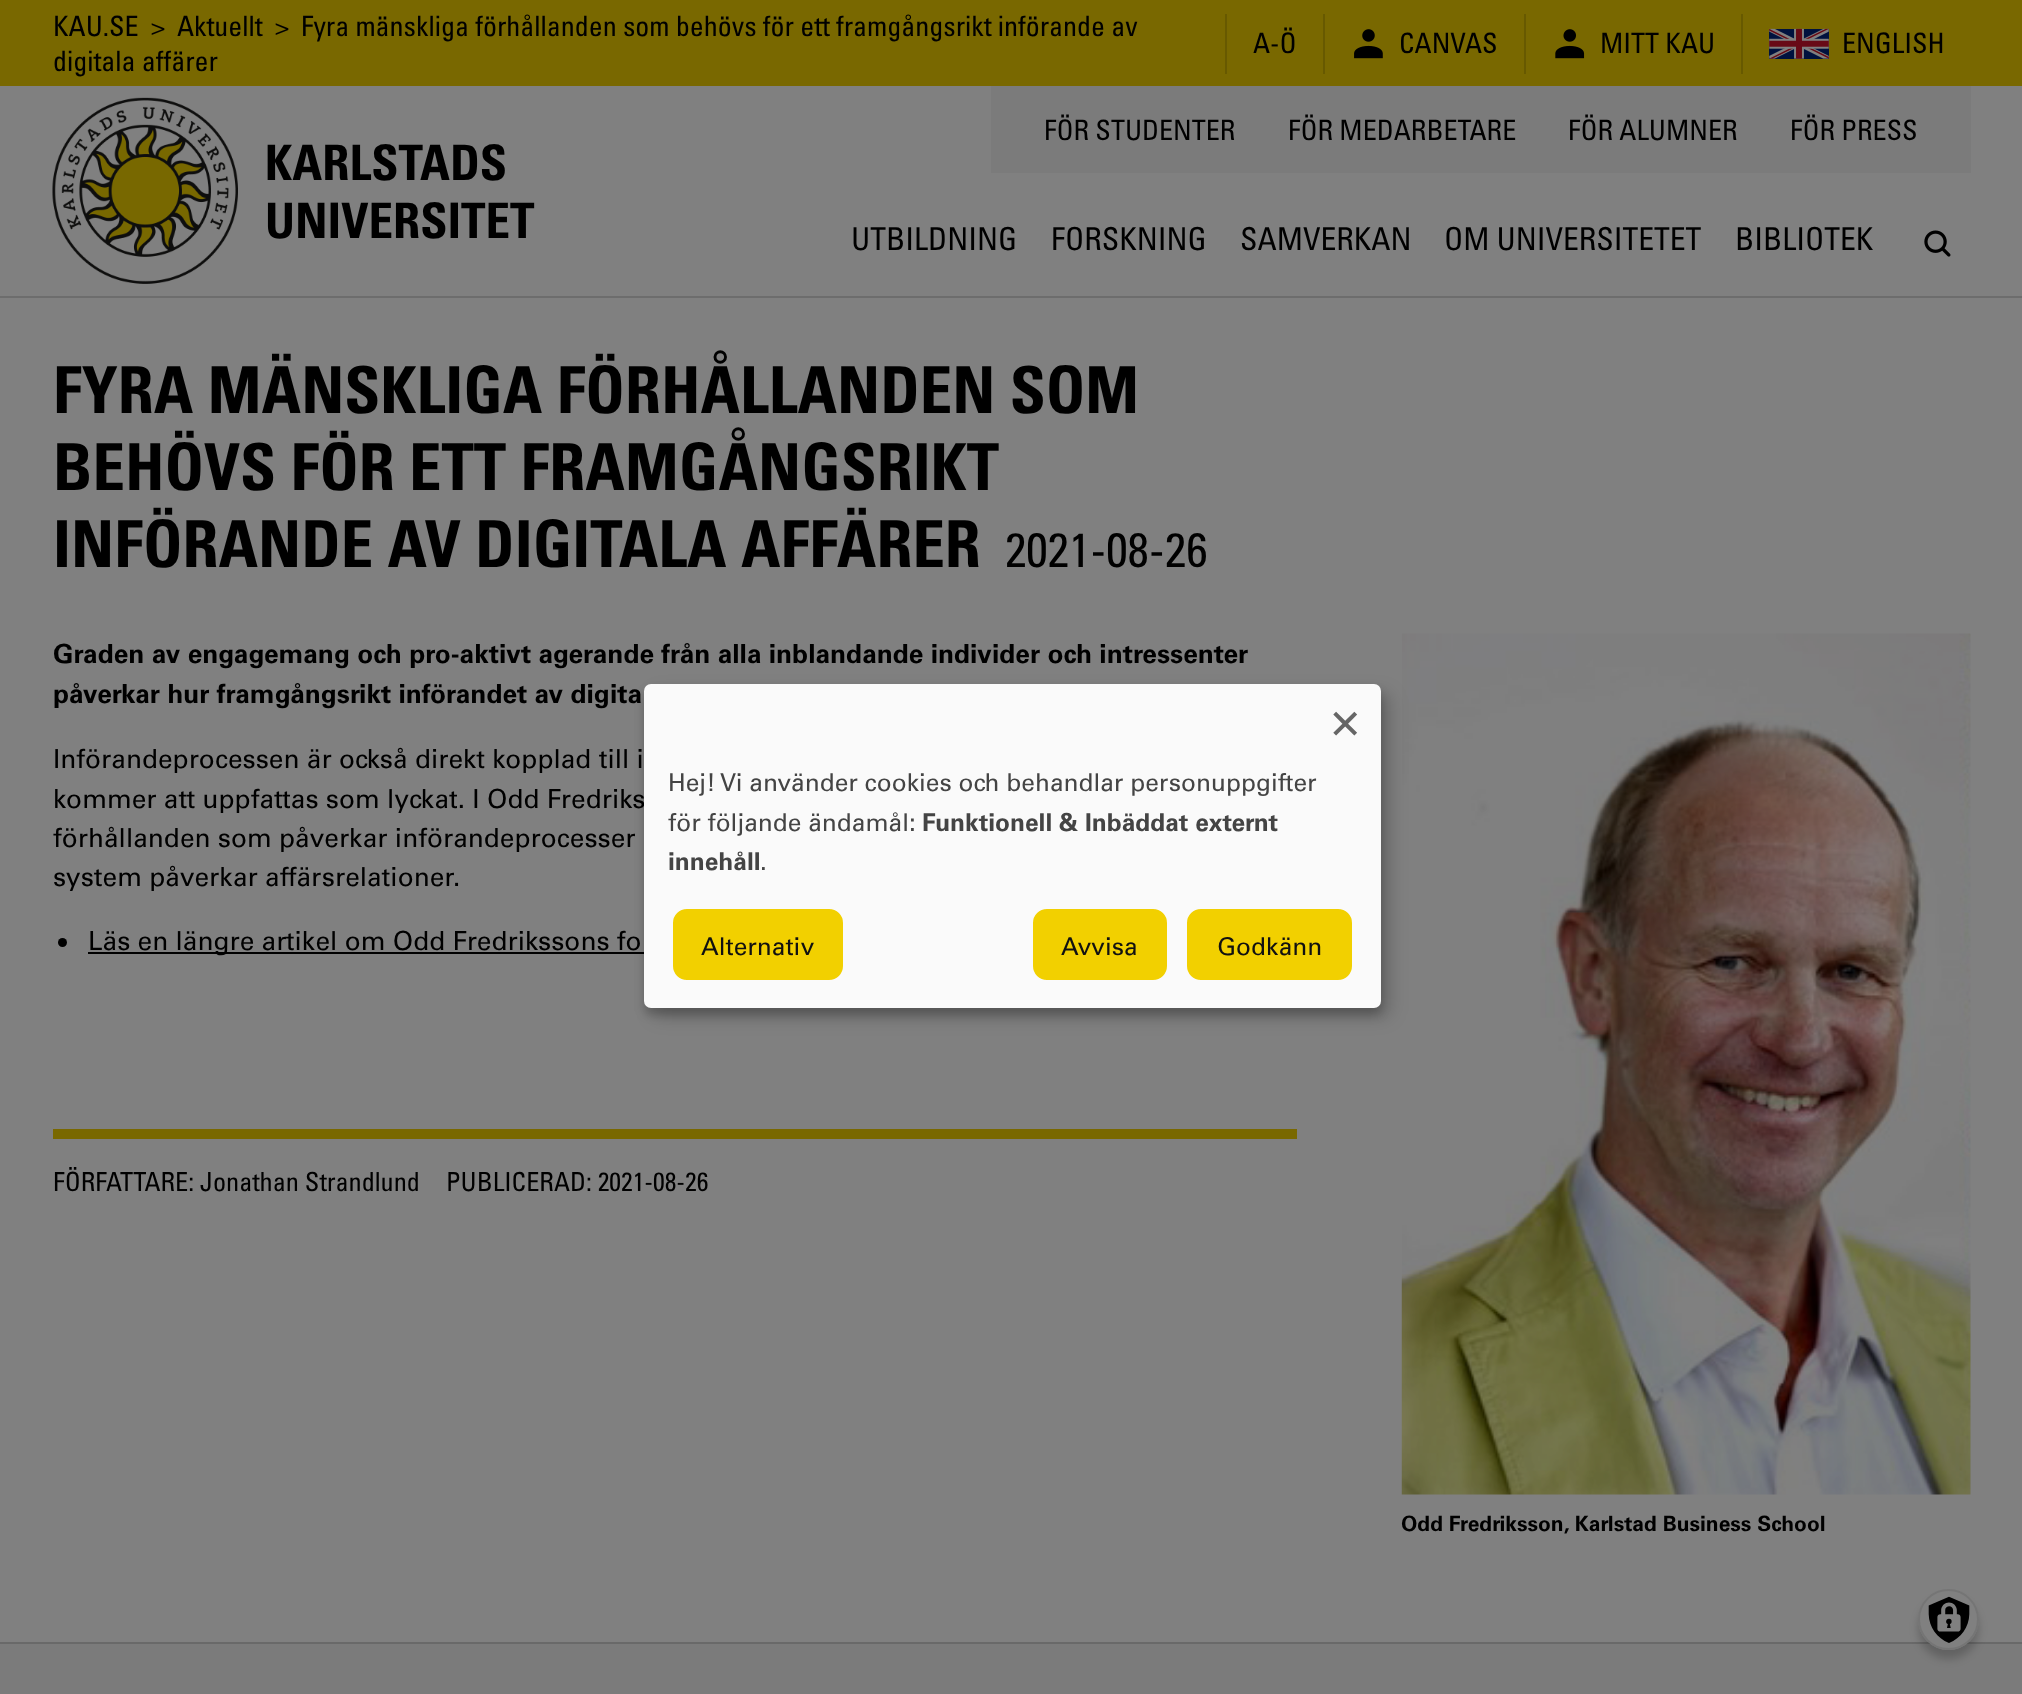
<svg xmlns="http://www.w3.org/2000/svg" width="2022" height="1694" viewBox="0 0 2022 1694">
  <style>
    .t1 { font: 28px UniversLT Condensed; fill: #000; }
    .t2 { font: bold 49px UniversLT Condensed; fill: #000; }
    .t3 { font: 31.5px UniversLT Condensed; fill: #000; }
    .t4 { font: bold 64.75px UniversLT Condensed; fill: #000; }
    .t5 { font: 48px UniversLT Condensed; fill: #000; }
    .t6 { font: bold 26.25px Univers; fill: #000; }
    .t7 { font: 26.25px Univers; fill: #000; }
    .t8 { font: 26.25px UniversLT Condensed; fill: #000; }
    .t9 { font: bold 21px Univers; fill: #000; }
    .t10 { font: 49px Univers; fill: #666; }
    .t11 { font: 24.5px Univers; fill: #444; }
    .t12 { font: bold 24.5px Univers; fill: #444; }
    .t13 { font: 24.5px Univers; fill: #111; }
  </style>
  <defs>
    <clipPath id="clip1"><rect x="1444" y="219" width="257" height="38"/></clipPath>
  </defs>
  <rect width="100%" height="100%" fill="#808080"/>
  <rect x="0" y="0" width="2022" height="86" fill="#796800"/>
  <text x="53" y="36" class="t1">KAU.SE</text>
  <text x="151" y="36" class="t1">&gt;</text>
  <text x="177" y="36" class="t1">Aktuellt</text>
  <text x="275" y="36" class="t1">&gt;</text>
  <text x="301" y="36" class="t1">Fyra mänskliga förhållanden som behövs för ett framgångsrikt införande av</text>
  <text x="53" y="71" class="t1">digitala affärer</text>
  <rect x="1225" y="14" width="2" height="60" fill="#675900"/>
  <text x="1253" y="53" class="t1">A-Ö</text>
  <rect x="1323" y="14" width="2" height="60" fill="#675900"/>
  <image x="1354" y="29" width="29" height="30" href="images/1.png"/>
  <text x="1399" y="53" class="t1">CANVAS</text>
  <rect x="1524" y="14" width="2" height="60" fill="#675900"/>
  <image x="1555" y="29" width="30" height="30" href="images/2.png"/>
  <text x="1600" y="53" class="t1">MITT KAU</text>
  <rect x="1741" y="14" width="2" height="60" fill="#675900"/>
  <image x="1769" y="28" width="60" height="31" href="images/3.png"/>
  <text x="1842" y="53" class="t1">ENGLISH</text>
  <image x="52" y="97" width="186" height="187" href="images/4.png"/>
  <text x="265" y="180" class="t2">KARLSTADS</text>
  <text x="265" y="238" class="t2">UNIVERSITET</text>
  <rect x="991" y="86" width="980" height="87" fill="#7b7b7b"/>
  <text x="1044" y="140" class="t1">FÖR STUDENTER</text>
  <text x="1288" y="140" class="t1">FÖR MEDARBETARE</text>
  <text x="1568" y="140" class="t1">FÖR ALUMNER</text>
  <text x="1790" y="140" class="t1">FÖR PRESS</text>
  <text x="851" y="250" class="t3">UTBILDNING</text>
  <text x="1051" y="250" class="t3">FORSKNING</text>
  <text x="1240" y="250" class="t3">SAMVERKAN</text>
  <g clip-path="url(#clip1)">
    <text x="1444" y="250" class="t3">OM UNIVERSITETET</text>
  </g>
  <text x="1735" y="250" class="t3">BIBLIOTEK</text>
  <image x="1924" y="230" width="27" height="27" href="images/5.png"/>
  <rect x="0" y="296" width="2022" height="2" fill="#6d6d6d"/>
  <text x="53" y="413" class="t4">FYRA MÄNSKLIGA FÖRHÅLLANDEN SOM</text>
  <text x="53" y="490" class="t4">BEHÖVS FÖR ETT FRAMGÅNGSRIKT</text>
  <text x="53" y="567" class="t4">INFÖRANDE AV DIGITALA AFFÄRER</text>
  <text x="1005" y="567" class="t5">2021-08-26</text>
  <text x="53" y="663" class="t6">Graden av engagemang och pro-aktivt agerande från alla inblandande individer och intressenter</text>
  <text x="53" y="703" class="t6">påverkar hur framgångsrikt införandet av digita</text>
  <text x="53" y="768" class="t7">Införandeprocessen är också direkt kopplad till i</text>
  <text x="53" y="808" class="t7">kommer att uppfattas som lyckat. I Odd Fredriks</text>
  <text x="53" y="847" class="t7">förhållanden som påverkar införandeprocesser</text>
  <text x="53" y="886" class="t7">system påverkar affärsrelationer.</text>
  <circle cx="62.5" cy="942.5" r="4.5" fill="#000"/>
  <rect x="88" y="952" width="556" height="2" fill="#000"/>
  <text x="88" y="950" class="t7">Läs en längre artikel om Odd Fredrikssons fo</text>
  <rect x="53" y="1129" width="1244" height="10" fill="#796800"/>
  <text x="53" y="1191" class="t8">FÖRFATTARE: Jonathan Strandlund</text>
  <text x="446" y="1191" class="t8">PUBLICERAD: 2021-08-26</text>
  <image x="1401" y="633" width="570" height="862" href="images/6.png"/>
  <text x="1401" y="1531" class="t9">Odd Fredriksson, Karlstad Business School</text>
  <rect x="0" y="1644" width="2022" height="50" fill="#7b7b7b"/>
  <rect x="0" y="1642" width="2022" height="2" fill="#696969"/>
  <rect x="653" y="693" width="737" height="324" rx="7" fill="#00000030" filter="blur(9px)"/>
  <rect x="644" y="691" width="737" height="324" rx="7" fill="#00000033" filter="blur(5px)"/>
  <rect x="644" y="684" width="737" height="324" rx="7" fill="#fafafa"/>
  <text x="1331" y="736" class="t10">×</text>
  <text x="668" y="791" class="t11">Hej! Vi använder cookies och behandlar personuppgifter</text>
  <text x="668" y="831" class="t11">för följande ändamål:</text>
  <text x="922" y="831" class="t12">Funktionell &amp; Inbäddat externt</text>
  <text x="668" y="870" class="t12">innehåll</text>
  <text x="760" y="870" class="t11">.</text>
  <rect x="671" y="907" width="174" height="75" rx="16" fill="#f2d000" stroke="#fafafa" stroke-width="4"/>
  <text x="701" y="955" class="t13">Alternativ</text>
  <rect x="1031" y="907" width="138" height="75" rx="16" fill="#f2d000" stroke="#fafafa" stroke-width="4"/>
  <text x="1061" y="955" class="t13">Avvisa</text>
  <rect x="1185" y="907" width="169" height="75" rx="16" fill="#f2d000" stroke="#fafafa" stroke-width="4"/>
  <text x="1217" y="955" class="t13">Godkänn</text>
  <rect x="1918" y="1598" width="61" height="61" rx="30.5" fill="#00000033" filter="blur(4.5px)"/>
  <circle cx="1948.5" cy="1619.5" r="30.5" fill="#808080"/>
  <image x="1928" y="1596" width="42" height="47" href="images/7.png"/>
  <circle cx="1948.5" cy="1619.5" r="29.5" fill="none" stroke="#757575" stroke-width="2"/>
</svg>
